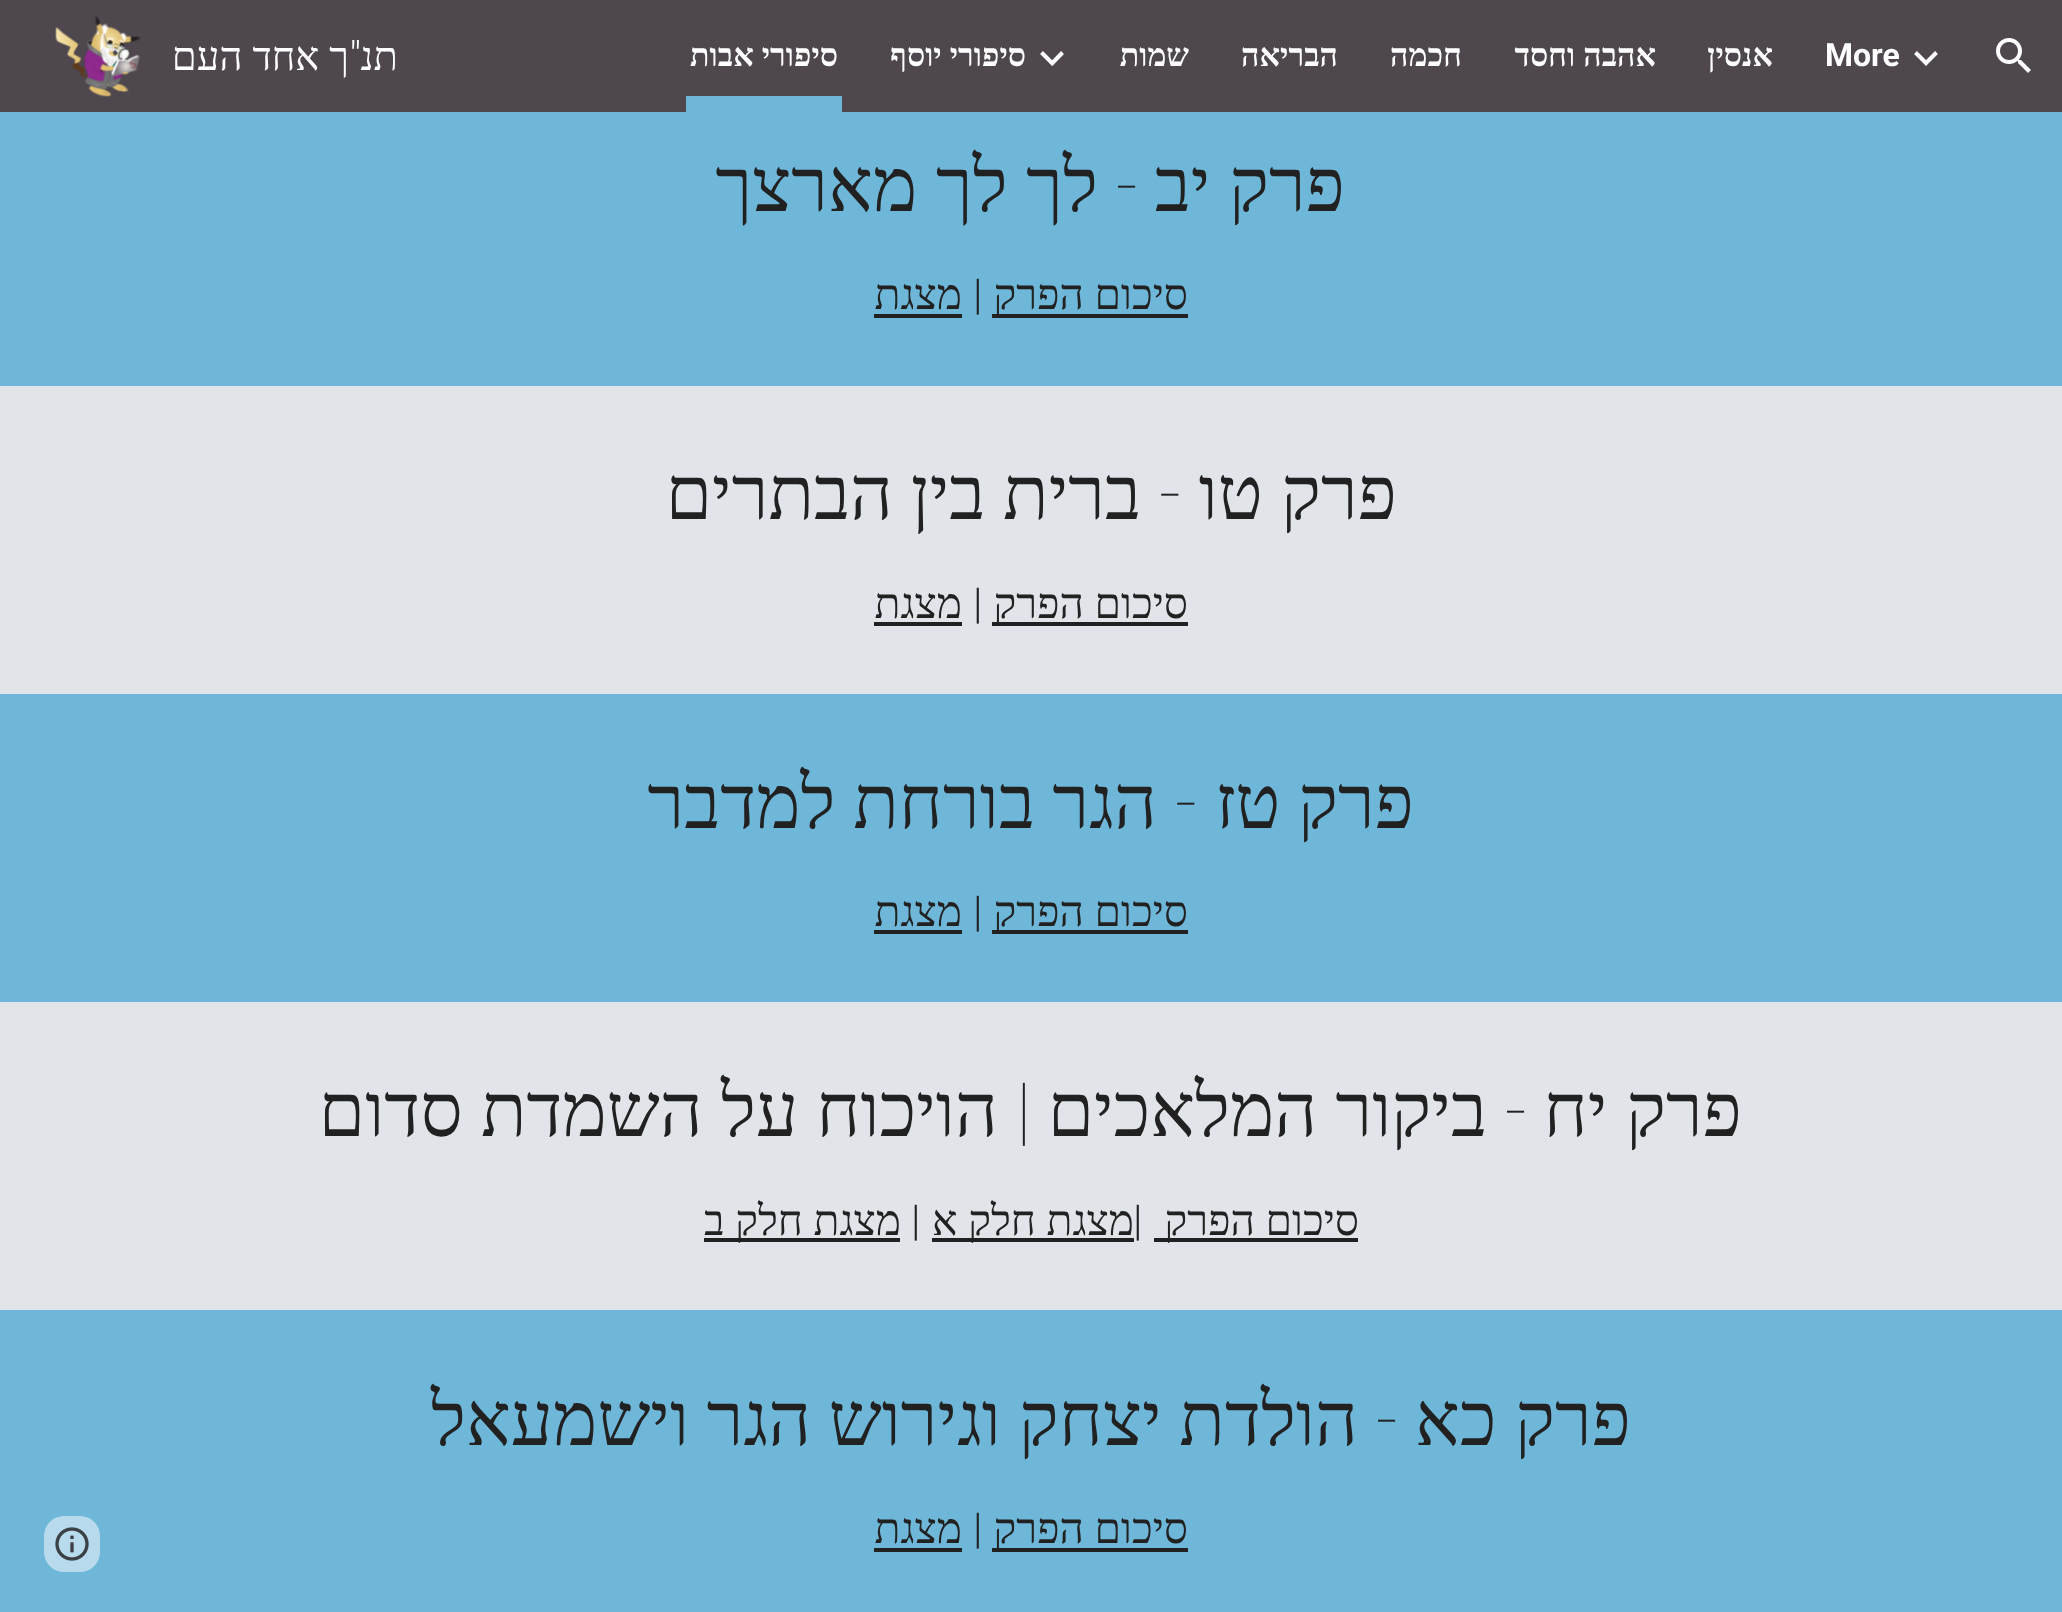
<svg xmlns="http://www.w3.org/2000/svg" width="2062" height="1612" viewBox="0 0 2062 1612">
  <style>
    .t1 { font: bold 32px Roboto; fill: #fff; }
    .t2 { font: bold 32px Liberation Serif; direction: rtl; fill: #fff; }
    .t3 { font: 300 40px Roboto; direction: rtl; fill: #fff; }
    .t4 { font: 40px Liberation Serif; direction: rtl; fill: #fff; }
    .t5 { font: 74.75px Liberation Serif; direction: rtl; fill: #212121; }
    .t6 { font: 100 74.75px Roboto; direction: rtl; fill: #212121; }
    .t7 { font: 42.5px Liberation Serif; direction: rtl; fill: #212121; }
    .t8 { font: 300 42.5px Roboto; fill: #212121; }
    .t9 { font: 100 74.75px Roboto; fill: #212121; }
  </style>
  <rect width="100%" height="100%" fill="#e1e4e8"/>
  <rect x="0" y="0" width="2062" height="112" fill="#4f474e"/>
  <image x="1996" y="38" width="35" height="35" href="images/1.png"/>
  <path d="M1915.5 52.5L1927.5 64.5M1924.5 64.5L1936.5 52.5" fill="none" stroke="#fff" stroke-width="4"/>
  <text x="1825" y="66" class="t1">More</text>
  <text x="1773" y="66" class="t2">אנסין</text>
  <text x="1656" y="66" class="t2">אהבה וחסד</text>
  <text x="1462" y="66" class="t2">חכמה</text>
  <text x="1338" y="66" class="t2">הבריאה</text>
  <text x="1189" y="66" class="t2">שמות</text>
  <path d="M1041.5 52.5L1053.5 64.5M1051 64.5L1062.5 52.5" fill="none" stroke="#fff" stroke-width="4"/>
  <text x="1026" y="66" class="t2">סיפורי יוסף</text>
  <rect x="686" y="96" width="156" height="16" fill="#6eb7d8"/>
  <text x="838" y="66" class="t2">סיפורי אבות</text>
  <text x="361" y="70" class="t3">"</text>
  <text x="398" y="70" class="t4">תנ</text>
  <text x="349" y="70" class="t4">ך אחד העם</text>
  <image x="55" y="16" width="86" height="81" href="images/2.png"/>
  <rect x="0" y="112" width="2062" height="274" fill="#6eb7d8"/>
  <text x="1345" y="211" class="t5">פרק יב</text>
  <text x="1138" y="211" class="t6">-</text>
  <text x="1098" y="211" class="t5">לך לך מארצך</text>
  <rect x="992" y="314" width="196" height="4" fill="#212121"/>
  <text x="1188" y="309" class="t7">סיכום הפרק</text>
  <text x="973" y="309" class="t8">|</text>
  <text x="962" y="309" class="t7">מצגת</text>
  <rect x="874" y="314" width="88" height="4" fill="#212121"/>
  <text x="1397" y="519" class="t5">פרק</text>
  <text x="1263" y="519" class="t5">טו</text>
  <text x="1159" y="519" class="t9">-</text>
  <text x="1141" y="519" word-spacing="-1" class="t5">ברית בין הבתרים</text>
  <rect x="992" y="622" width="196" height="4" fill="#212121"/>
  <text x="1188" y="618" class="t7">סיכום הפרק</text>
  <text x="973" y="618" class="t8">|</text>
  <text x="962" y="618" class="t7">מצגת</text>
  <rect x="874" y="622" width="88" height="4" fill="#212121"/>
  <rect x="0" y="694" width="2062" height="308" fill="#6eb7d8"/>
  <text x="1414" y="828" word-spacing="-1" class="t5">פרק ט</text>
  <text x="1236" y="828" class="t5">ז</text>
  <text x="1175" y="828" class="t9">-</text>
  <text x="1157" y="828" word-spacing="-1" class="t5">הגר בורחת למדבר</text>
  <rect x="992" y="930" width="196" height="4" fill="#212121"/>
  <text x="1188" y="926" class="t7">סיכום הפרק</text>
  <text x="973" y="926" class="t8">|</text>
  <text x="962" y="926" class="t7">מצגת</text>
  <rect x="874" y="930" width="88" height="4" fill="#212121"/>
  <text x="1742" y="1136" class="t5">פרק יח</text>
  <text x="1527" y="1136" class="t6">-</text>
  <text x="1487" y="1136" word-spacing="-0.5" class="t5">ביקור המלאכים</text>
  <text x="1031" y="1136" class="t6">|</text>
  <text x="998" y="1136" word-spacing="-0.5" class="t5">הויכוח על השמדת סדום</text>
  <rect x="1154" y="1238" width="204" height="4" fill="#212121"/>
  <text x="1359" y="1235" class="t7">סיכום הפרק</text>
  <text x="1133" y="1235" class="t8">|</text>
  <rect x="932" y="1238" width="202" height="4" fill="#212121"/>
  <text x="1134" y="1235" class="t7">מצגת חלק א</text>
  <text x="911" y="1235" class="t8">|</text>
  <rect x="704" y="1238" width="196" height="4" fill="#212121"/>
  <text x="901" y="1235" class="t7">מצגת חלק ב</text>
  <rect x="0" y="1310" width="2062" height="302" fill="#6eb7d8"/>
  <text x="1631" y="1445" class="t5">פרק כא</text>
  <text x="1398" y="1445" class="t6">-</text>
  <text x="1358" y="1445" word-spacing="-1" class="t5">הולדת יצחק וגירוש הגר וישמעאל</text>
  <rect x="992" y="1548" width="196" height="4" fill="#212121"/>
  <text x="1188" y="1543" class="t7">סיכום הפרק</text>
  <text x="973" y="1543" class="t8">|</text>
  <text x="962" y="1543" class="t7">מצגת</text>
  <rect x="874" y="1548" width="88" height="4" fill="#212121"/>
  <rect x="44" y="1516" width="56" height="56" rx="20" fill="#b7dbec"/>
  <image x="55" y="1527" width="34" height="34" href="images/3.png"/>
</svg>
